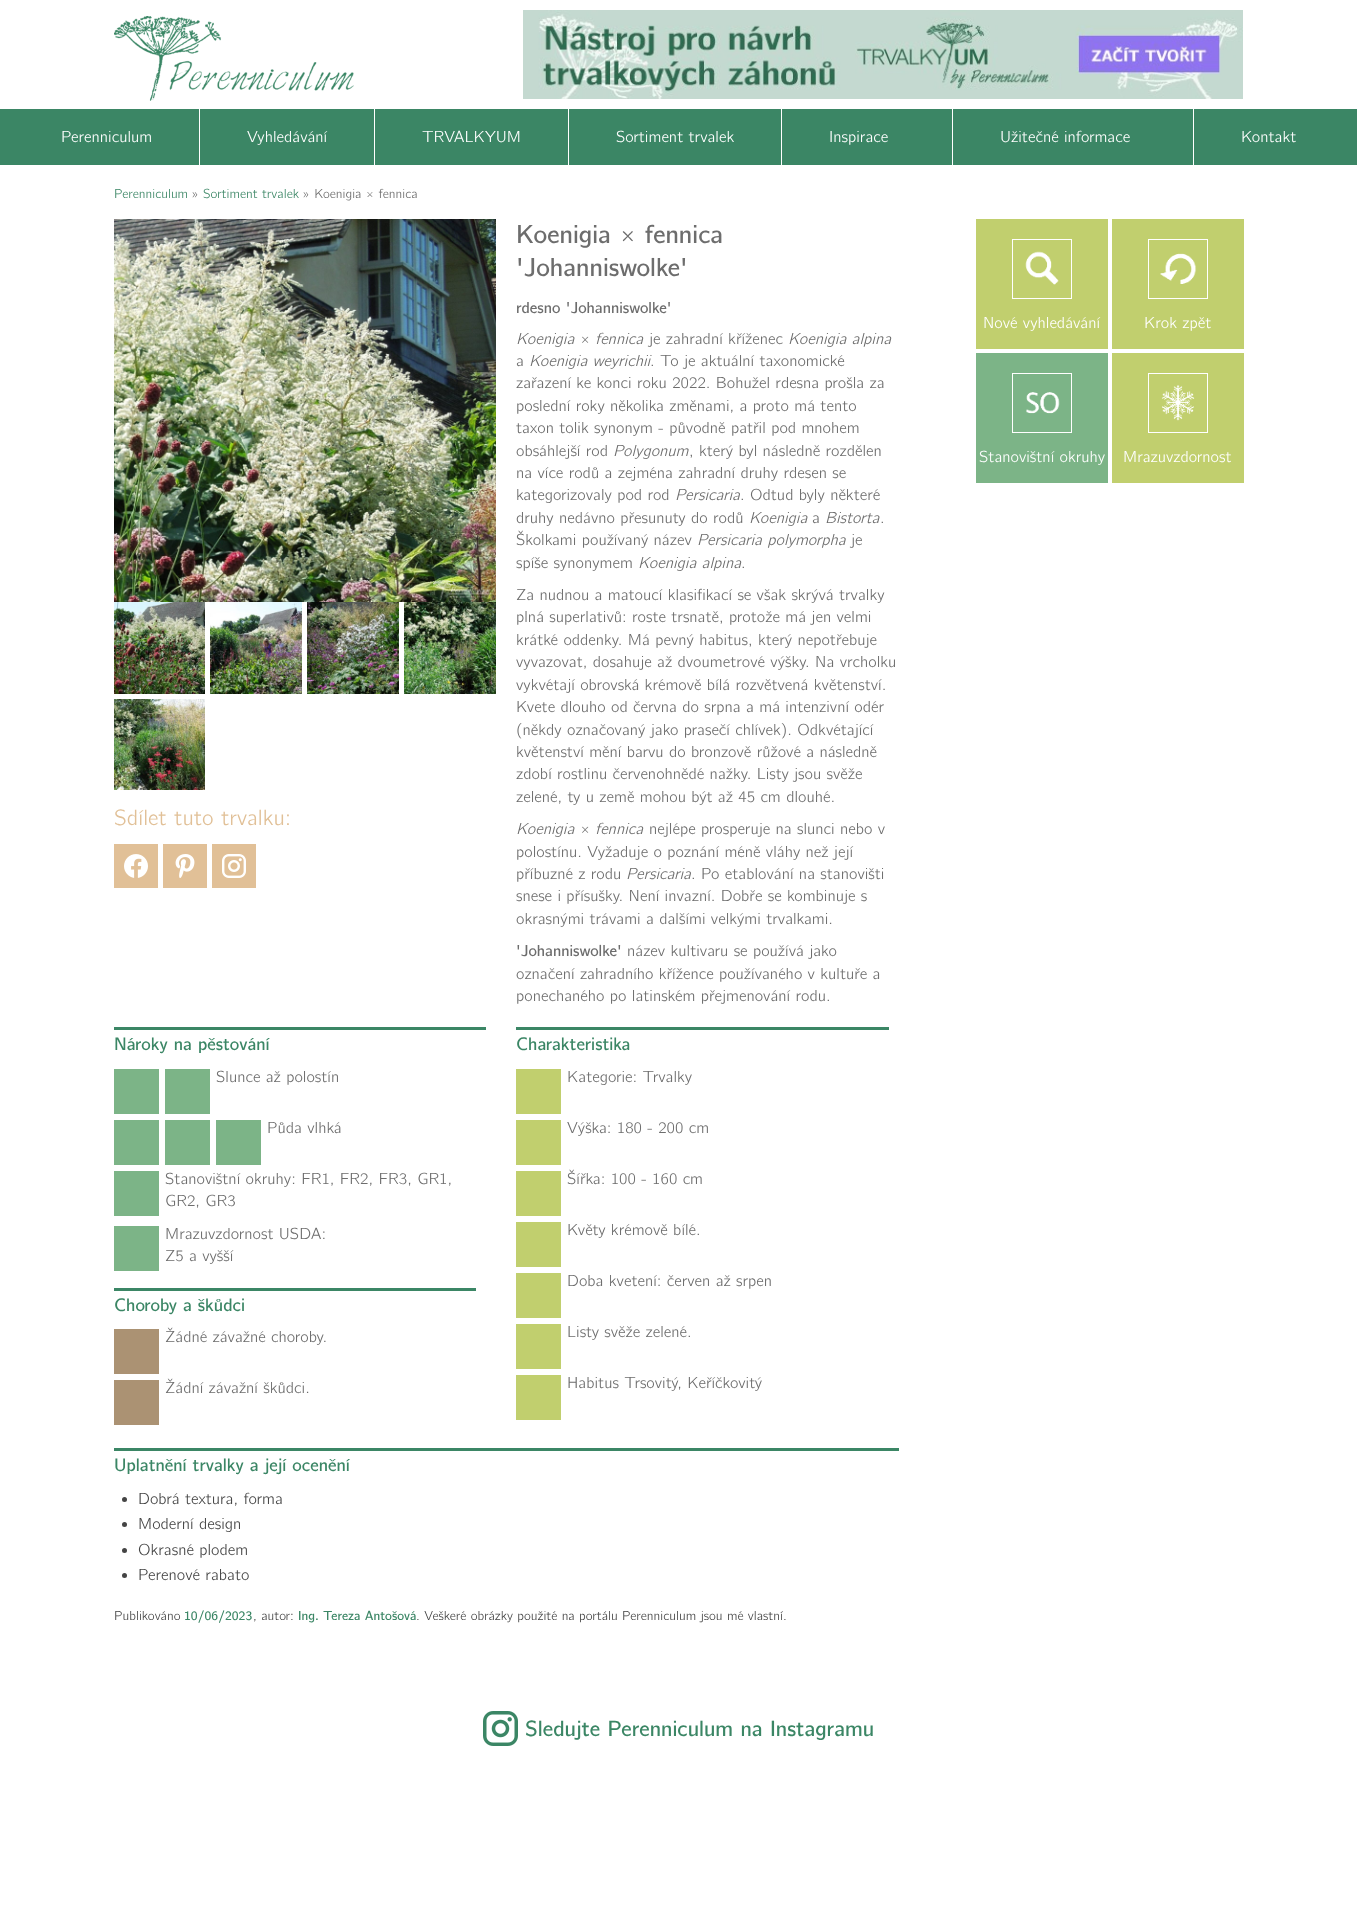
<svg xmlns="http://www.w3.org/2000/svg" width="1357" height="1926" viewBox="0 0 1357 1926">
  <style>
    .t1 { font: 16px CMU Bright; fill: #fff; }
    .t2 { font: 13px CMU Bright; fill: #3b8665; }
    .t3 { font: 13px CMU Bright; fill: #6d6d6d; }
    .t4 { font: 22px CMU Bright; fill: #e1c097; }
    .t5 { font: 600 26px CMU Bright; fill: #6d6d6d; }
    .t6 { font: 600 16px CMU Bright; fill: #6d6d6d; }
    .t7 { font: italic 16px CMU Bright; fill: #6d6d6d; }
    .t8 { font: 16px CMU Bright; fill: #6d6d6d; }
    .t9 { font: 600 18px CMU Bright; fill: #3b8665; }
    .t10 { font: 16px CMU Bright; fill: #444; }
    .t11 { font: 13px CMU Bright; fill: #444; }
    .t12 { font: 600 13px CMU Bright; fill: #3b8665; }
    .t13 { font: 600 22px CMU Bright; fill: #3b8665; }
  </style>
  <rect width="100%" height="100%" fill="#fff"/>
  <image x="114" y="16" width="240" height="85" href="images/1.png"/>
  <image x="523" y="10" width="720" height="89" href="images/2.png"/>
  <rect x="0" y="109" width="1357" height="56" fill="#3b8665"/>
  <rect x="199" y="109" width="1" height="56" fill="#fff"/>
  <text x="61" y="142" class="t1">Perenniculum</text>
  <rect x="374" y="109" width="1" height="56" fill="#fff"/>
  <text x="247" y="142" class="t1">Vyhledávání</text>
  <rect x="568" y="109" width="1" height="56" fill="#fff"/>
  <text x="422" y="142" class="t1">TRVALKYUM</text>
  <rect x="781" y="109" width="1" height="56" fill="#fff"/>
  <text x="616" y="142" class="t1">Sortiment trvalek</text>
  <rect x="952" y="109" width="1" height="56" fill="#fff"/>
  <text x="829" y="142" class="t1">Inspirace</text>
  <rect x="1193" y="109" width="1" height="56" fill="#fff"/>
  <text x="1000" y="142" class="t1">Užitečné informace</text>
  <text x="1241" y="142" class="t1">Kontakt</text>
  <text x="114" y="198" class="t2">Perenniculum</text>
  <text x="192" y="198" class="t3">»</text>
  <text x="203" y="198" class="t2">Sortiment trvalek</text>
  <text x="303" y="198" class="t3">» Koenigia × fennica</text>
  <image x="114" y="219" width="382" height="383" href="images/3.png"/>
  <image x="114" y="602" width="91" height="92" href="images/4.png"/>
  <image x="210" y="602" width="92" height="92" href="images/5.png"/>
  <image x="307" y="602" width="92" height="92" href="images/6.png"/>
  <image x="404" y="602" width="92" height="92" href="images/7.png"/>
  <image x="114" y="699" width="91" height="91" href="images/8.png"/>
  <text x="114" y="825" class="t4">Sdílet tuto trvalku:</text>
  <rect x="114" y="844" width="44" height="44" fill="#e1c097"/>
  <image x="124" y="854" width="24" height="24" href="images/9.png"/>
  <rect x="163" y="844" width="44" height="44" fill="#e1c097"/>
  <image x="175" y="854" width="20" height="24" href="images/10.png"/>
  <rect x="212" y="844" width="44" height="44" fill="#e1c097"/>
  <image x="222" y="854" width="24" height="24" href="images/11.png"/>
  <text x="516" y="243" class="t5">Koenigia × fennica</text>
  <text x="516" y="276" class="t5">'Johanniswolke'</text>
  <text x="516" y="313" class="t6">rdesno 'Johanniswolke'</text>
  <text x="516" y="344" class="t7">Koenigia</text>
  <text x="580" y="344" class="t8">×</text>
  <text x="595" y="344" class="t7">fennica</text>
  <text x="649" y="344" class="t8">je zahradní kříženec</text>
  <text x="788" y="344" class="t7">Koenigia alpina</text>
  <text x="516" y="366" class="t8">a</text>
  <text x="529" y="366" class="t7">Koenigia weyrichii</text>
  <text x="650" y="366" class="t8">. To je aktuální taxonomické</text>
  <text x="516" y="388" class="t8">zařazení ke konci roku 2022. Bohužel rdesna prošla za</text>
  <text x="516" y="411" class="t8">poslední roky několika změnami, a proto má tento</text>
  <text x="516" y="433" class="t8">taxon tolik synonym - původně patřil pod mnohem</text>
  <text x="516" y="456" class="t8">obsáhlejší rod</text>
  <text x="613" y="456" class="t7">Polygonum</text>
  <text x="689" y="456" class="t8">, který byl následně rozdělen</text>
  <text x="516" y="478" class="t8">na více rodů a zejména zahradní druhy rdesen se</text>
  <text x="516" y="500" class="t8">kategorizovaly pod rod</text>
  <text x="675" y="500" class="t7">Persicaria</text>
  <text x="740" y="500" class="t8">. Odtud byly některé</text>
  <text x="516" y="523" class="t8">druhy nedávno přesunuty do rodů</text>
  <text x="749" y="523" class="t7">Koenigia</text>
  <text x="812" y="523" class="t8">a</text>
  <text x="825" y="523" class="t7">Bistorta</text>
  <text x="880" y="523" class="t8">.</text>
  <text x="516" y="545" class="t8">Školkami používaný název</text>
  <text x="697" y="545" class="t7">Persicaria polymorpha</text>
  <text x="851" y="545" class="t8">je</text>
  <text x="516" y="568" class="t8">spíše synonymem</text>
  <text x="638" y="568" class="t7">Koenigia alpina</text>
  <text x="741" y="568" class="t8">.</text>
  <text x="516" y="600" class="t8">Za nudnou a matoucí klasifikací se však skrývá trvalky</text>
  <text x="516" y="622" class="t8">plná superlativů: roste trsnatě, protože má jen velmi</text>
  <text x="516" y="645" class="t8">krátké oddenky. Má pevný habitus, který nepotřebuje</text>
  <text x="516" y="667" class="t8">vyvazovat, dosahuje až dvoumetrové výšky. Na vrcholku</text>
  <text x="516" y="690" class="t8">vykvétají obrovská krémově bílá rozvětvená květenství.</text>
  <text x="516" y="712" class="t8">Kvete dlouho od června do srpna a má intenzivní odér</text>
  <text x="516" y="735" class="t8">(někdy označovaný jako prasečí chlívek). Odkvétající</text>
  <text x="516" y="757" class="t8">květenství mění barvu do bronzově růžové a následně</text>
  <text x="516" y="779" class="t8">zdobí rostlinu červenohnědé nažky. Listy jsou svěže</text>
  <text x="516" y="802" class="t8">zelené, ty u země mohou být až 45 cm dlouhé.</text>
  <text x="516" y="834" class="t7">Koenigia</text>
  <text x="580" y="834" class="t8">×</text>
  <text x="595" y="834" class="t7">fennica</text>
  <text x="649" y="834" class="t8">nejlépe prosperuje na slunci nebo v</text>
  <text x="516" y="857" class="t8">polostínu. Vyžaduje o poznání méně vláhy než její</text>
  <text x="516" y="879" class="t8">příbuzné z rodu</text>
  <text x="626" y="879" class="t7">Persicaria</text>
  <text x="691" y="879" class="t8">. Po etablování na stanovišti</text>
  <text x="516" y="901" class="t8">snese i přísušky. Není invazní. Dobře se kombinuje s</text>
  <text x="516" y="924" class="t8">okrasnými trávami a dalšími velkými trvalkami.</text>
  <text x="516" y="956" class="t6">'Johanniswolke'</text>
  <text x="627" y="956" class="t8">název kultivaru se používá jako</text>
  <text x="516" y="979" class="t8">označení zahradního křížence používaného v kultuře a</text>
  <text x="516" y="1001" class="t8">ponechaného po latinském přejmenování rodu.</text>
  <rect x="114" y="1027" width="372" height="3" fill="#3b8665"/>
  <text x="114" y="1050" class="t9">Nároky na pěstování</text>
  <rect x="114" y="1069" width="45" height="45" fill="#7cb487"/>
  <rect x="165" y="1069" width="45" height="45" fill="#7cb487"/>
  <text x="216" y="1082" class="t8">Slunce až polostín</text>
  <rect x="114" y="1120" width="45" height="45" fill="#7cb487"/>
  <rect x="165" y="1120" width="45" height="45" fill="#7cb487"/>
  <rect x="216" y="1120" width="45" height="45" fill="#7cb487"/>
  <text x="267" y="1133" class="t8">Půda vlhká</text>
  <rect x="114" y="1171" width="45" height="45" fill="#7cb487"/>
  <text x="165" y="1184" class="t8">Stanovištní okruhy: FR1, FR2, FR3, GR1,</text>
  <text x="165" y="1206" class="t8">GR2, GR3</text>
  <rect x="114" y="1226" width="45" height="45" fill="#7cb487"/>
  <text x="165" y="1239" class="t8">Mrazuvzdornost USDA:</text>
  <text x="165" y="1261" class="t8">Z5 a vyšší</text>
  <rect x="114" y="1288" width="362" height="3" fill="#3b8665"/>
  <text x="114" y="1311" class="t9">Choroby a škůdci</text>
  <rect x="114" y="1329" width="45" height="45" fill="#ab9273"/>
  <text x="165" y="1342" class="t8">Žádné závažné choroby.</text>
  <rect x="114" y="1380" width="45" height="45" fill="#ab9273"/>
  <text x="165" y="1393" class="t8">Žádní závažní škůdci.</text>
  <rect x="516" y="1027" width="373" height="3" fill="#3b8665"/>
  <text x="516" y="1050" class="t9">Charakteristika</text>
  <rect x="516" y="1069" width="45" height="45" fill="#c1cf6e"/>
  <text x="567" y="1082" class="t8">Kategorie: Trvalky</text>
  <rect x="516" y="1120" width="45" height="45" fill="#c1cf6e"/>
  <text x="567" y="1133" class="t8">Výška: 180 - 200 cm</text>
  <rect x="516" y="1171" width="45" height="45" fill="#c1cf6e"/>
  <text x="567" y="1184" class="t8">Šířka: 100 - 160 cm</text>
  <rect x="516" y="1222" width="45" height="45" fill="#c1cf6e"/>
  <text x="567" y="1235" class="t8">Květy krémově bílé.</text>
  <rect x="516" y="1273" width="45" height="45" fill="#c1cf6e"/>
  <text x="567" y="1286" class="t8">Doba kvetení: červen až srpen</text>
  <rect x="516" y="1324" width="45" height="45" fill="#c1cf6e"/>
  <text x="567" y="1337" class="t8">Listy svěže zelené.</text>
  <rect x="516" y="1375" width="45" height="45" fill="#c1cf6e"/>
  <text x="567" y="1388" class="t8">Habitus Trsovitý, Keříčkovitý</text>
  <rect x="114" y="1448" width="785" height="3" fill="#3b8665"/>
  <text x="114" y="1471" class="t9">Uplatnění trvalky a její ocenění</text>
  <circle cx="124.5" cy="1499.5" r="2.5" fill="#444"/>
  <text x="138" y="1504" class="t10">Dobrá textura, forma</text>
  <circle cx="124.5" cy="1524.5" r="2.5" fill="#444"/>
  <text x="138" y="1529" class="t10">Moderní design</text>
  <circle cx="124.5" cy="1550.5" r="2.5" fill="#444"/>
  <text x="138" y="1555" class="t10">Okrasné plodem</text>
  <circle cx="124.5" cy="1575.5" r="2.5" fill="#444"/>
  <text x="138" y="1580" class="t10">Perenové rabato</text>
  <text x="114" y="1620" class="t11">Publikováno</text>
  <text x="184" y="1620" class="t12">10/06/2023</text>
  <text x="253" y="1620" class="t11">, autor:</text>
  <text x="298" y="1620" class="t12">Ing. Tereza Antošová</text>
  <text x="416" y="1620" class="t11">. Veškeré obrázky použité na portálu Perenniculum jsou mé vlastní.</text>
  <rect x="976" y="219" width="132" height="130" fill="#c1cf6e"/>
  <rect x="1012.5" y="239.5" width="59" height="59" fill="none" stroke="#fff"/>
  <image x="1025" y="251" width="34" height="34" href="images/12.png"/>
  <text x="983" y="328" class="t1">Nové vyhledávání</text>
  <rect x="1112" y="219" width="132" height="130" fill="#c1cf6e"/>
  <rect x="1148.5" y="239.5" width="59" height="59" fill="none" stroke="#fff"/>
  <image x="1160" y="253" width="37" height="31" href="images/13.png"/>
  <text x="1144" y="328" class="t1">Krok zpět</text>
  <rect x="976" y="353" width="132" height="130" fill="#7cb487"/>
  <rect x="1012.5" y="373.5" width="59" height="59" fill="none" stroke="#fff"/>
  <image x="1026" y="392" width="34" height="22" href="images/14.png"/>
  <text x="979" y="462" class="t1">Stanovištní okruhy</text>
  <rect x="1112" y="353" width="132" height="130" fill="#c1cf6e"/>
  <rect x="1148.5" y="373.5" width="59" height="59" fill="none" stroke="#fff"/>
  <image x="1161" y="385" width="34" height="36" href="images/15.png"/>
  <text x="1123" y="462" class="t1">Mrazuvzdornost</text>
  <image x="483" y="1711" width="35" height="35" href="images/16.png"/>
  <text x="525" y="1736" class="t13">Sledujte Perenniculum na Instagramu</text>
</svg>
